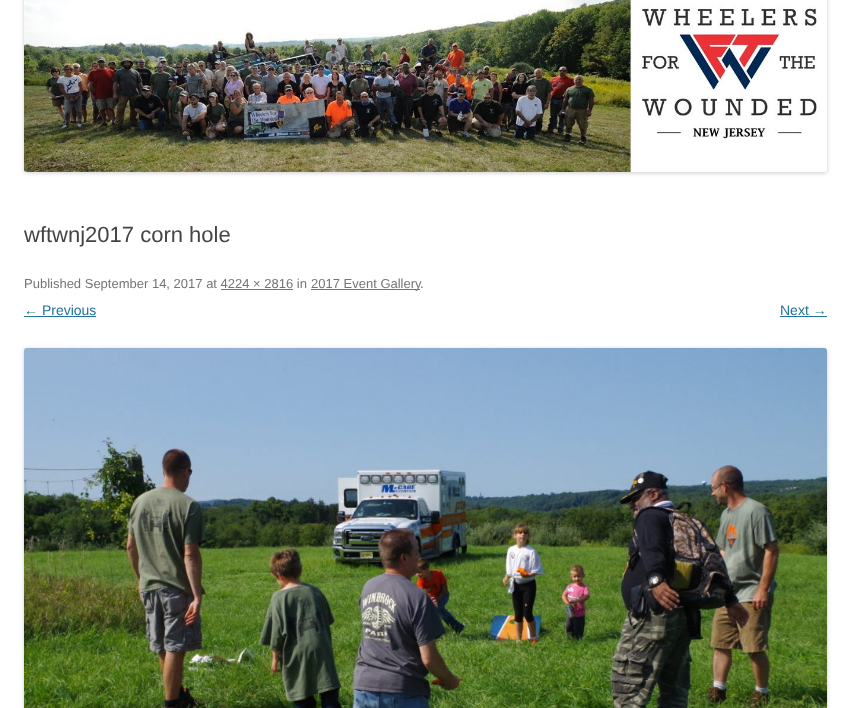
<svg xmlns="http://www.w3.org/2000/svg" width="851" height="708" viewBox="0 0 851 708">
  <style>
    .t1 { font: 22px Liberation Sans; fill: #444; }
    .t2 { font: 13px Liberation Sans; fill: #757575; }
    .t3 { font: 14px Liberation Sans; fill: #21759b; }
  </style>
  <rect width="100%" height="100%" fill="#fff"/>
  <rect x="24" y="-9" width="803" height="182" rx="3" fill="#00000033" filter="blur(2px)"/>
  <image x="24" y="0" width="803" height="172" href="images/1.png"/>
  <text x="24" y="242" class="t1">wftwnj2017 corn hole</text>
  <text x="24" y="288" class="t2">Published September 14, 2017 at 4224 × 2816 in</text>
  <rect x="311" y="289" width="109" height="1" fill="#757575"/>
  <text x="311" y="288" class="t2">2017 Event Gallery</text>
  <text x="420" y="288" class="t2">.</text>
  <rect x="221" y="289" width="72" height="1" fill="#757575"/>
  <text x="24" y="315" class="t3">← Previous</text>
  <rect x="24" y="316" width="72" height="1" fill="#21759b"/>
  <text x="780" y="315" class="t3">Next →</text>
  <rect x="780" y="316" width="47" height="1" fill="#21759b"/>
  <rect x="24" y="349" width="803" height="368" rx="3" fill="#00000033" filter="blur(2px)"/>
  <image x="24" y="348" width="803" height="360" href="images/2.png"/>
</svg>
